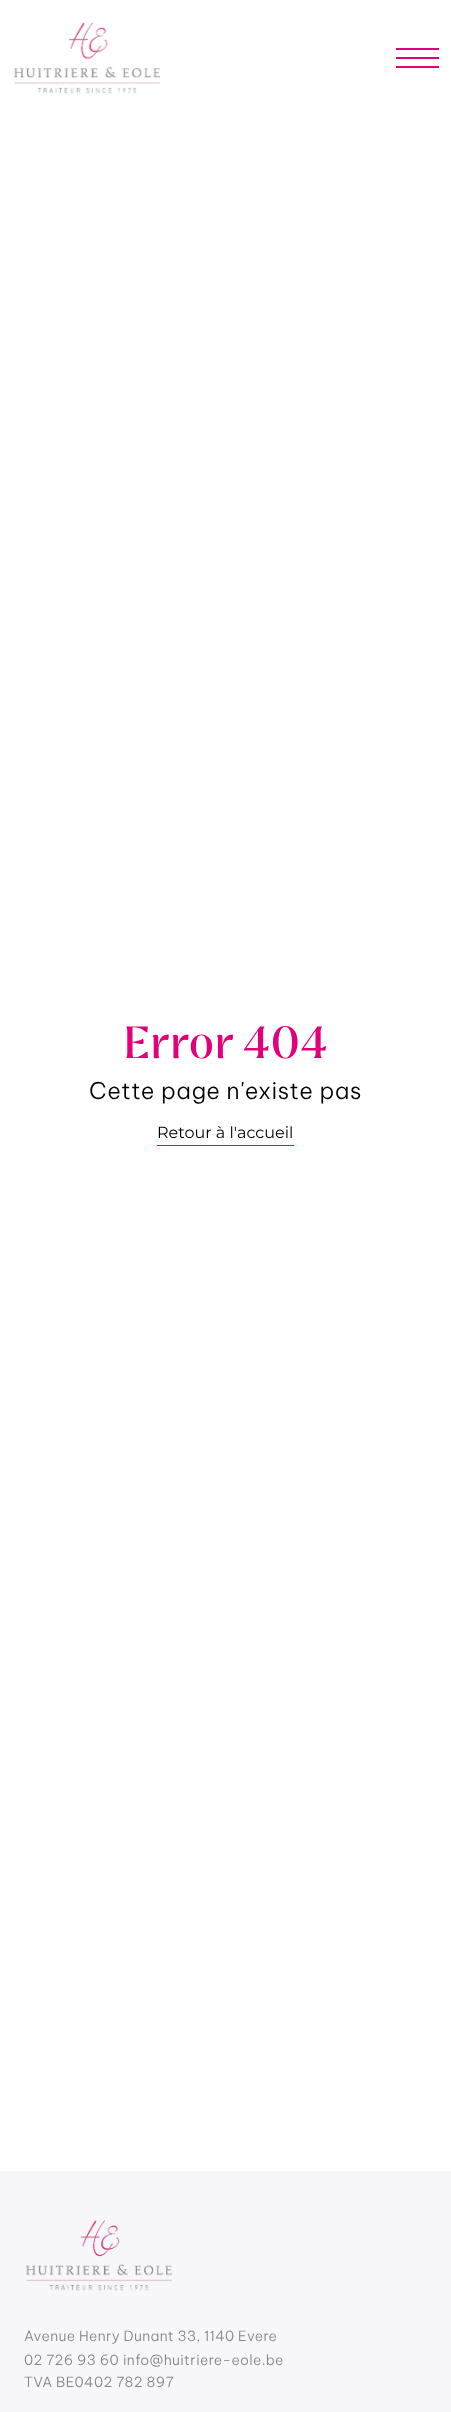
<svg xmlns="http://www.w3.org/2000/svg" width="451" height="2412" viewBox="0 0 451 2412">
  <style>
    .t1 { font: 500 45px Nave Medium; fill: #e2007a; }
    .t2 { font: 300 23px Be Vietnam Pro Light; letter-spacing: 0.6px; fill: #000; }
    .t3 { font: 16px Montserrat; fill: #000; }
    .t4 { font: 300 14px Be Vietnam Pro Light; letter-spacing: 0.35px; fill: #87888a; }
  </style>
  <rect width="100%" height="100%" fill="#fff"/>
  <image x="14" y="22" width="146" height="72" href="images/1.png"/>
  <rect x="396" y="48" width="43" height="2" fill="#e2007a"/>
  <rect x="396" y="57" width="43" height="2" fill="#e2007a"/>
  <rect x="396" y="66" width="43" height="2" fill="#e2007a"/>
  <text x="123" y="1058" class="t1">Error 404</text>
  <text x="89" y="1099" class="t2">Cette page n'existe pas</text>
  <rect x="157" y="1145" width="137" height="1" fill="#e2007a"/>
  <text x="157" y="1138" class="t3">Retour à l'accueil</text>
  <rect x="0" y="2171" width="451" height="241" fill="#f7f7f9"/>
  <image x="25" y="2220" width="147" height="71" href="images/2.png"/>
  <text x="24" y="2341" class="t4">Avenue Henry Dunant 33, 1140 Evere</text>
  <text x="24" y="2365" class="t4">02 726 93 60</text>
  <text x="123" y="2365" class="t4">info@huitriere-eole.be</text>
  <text x="24" y="2387" class="t4">TVA BE0402 782 897</text>
</svg>
